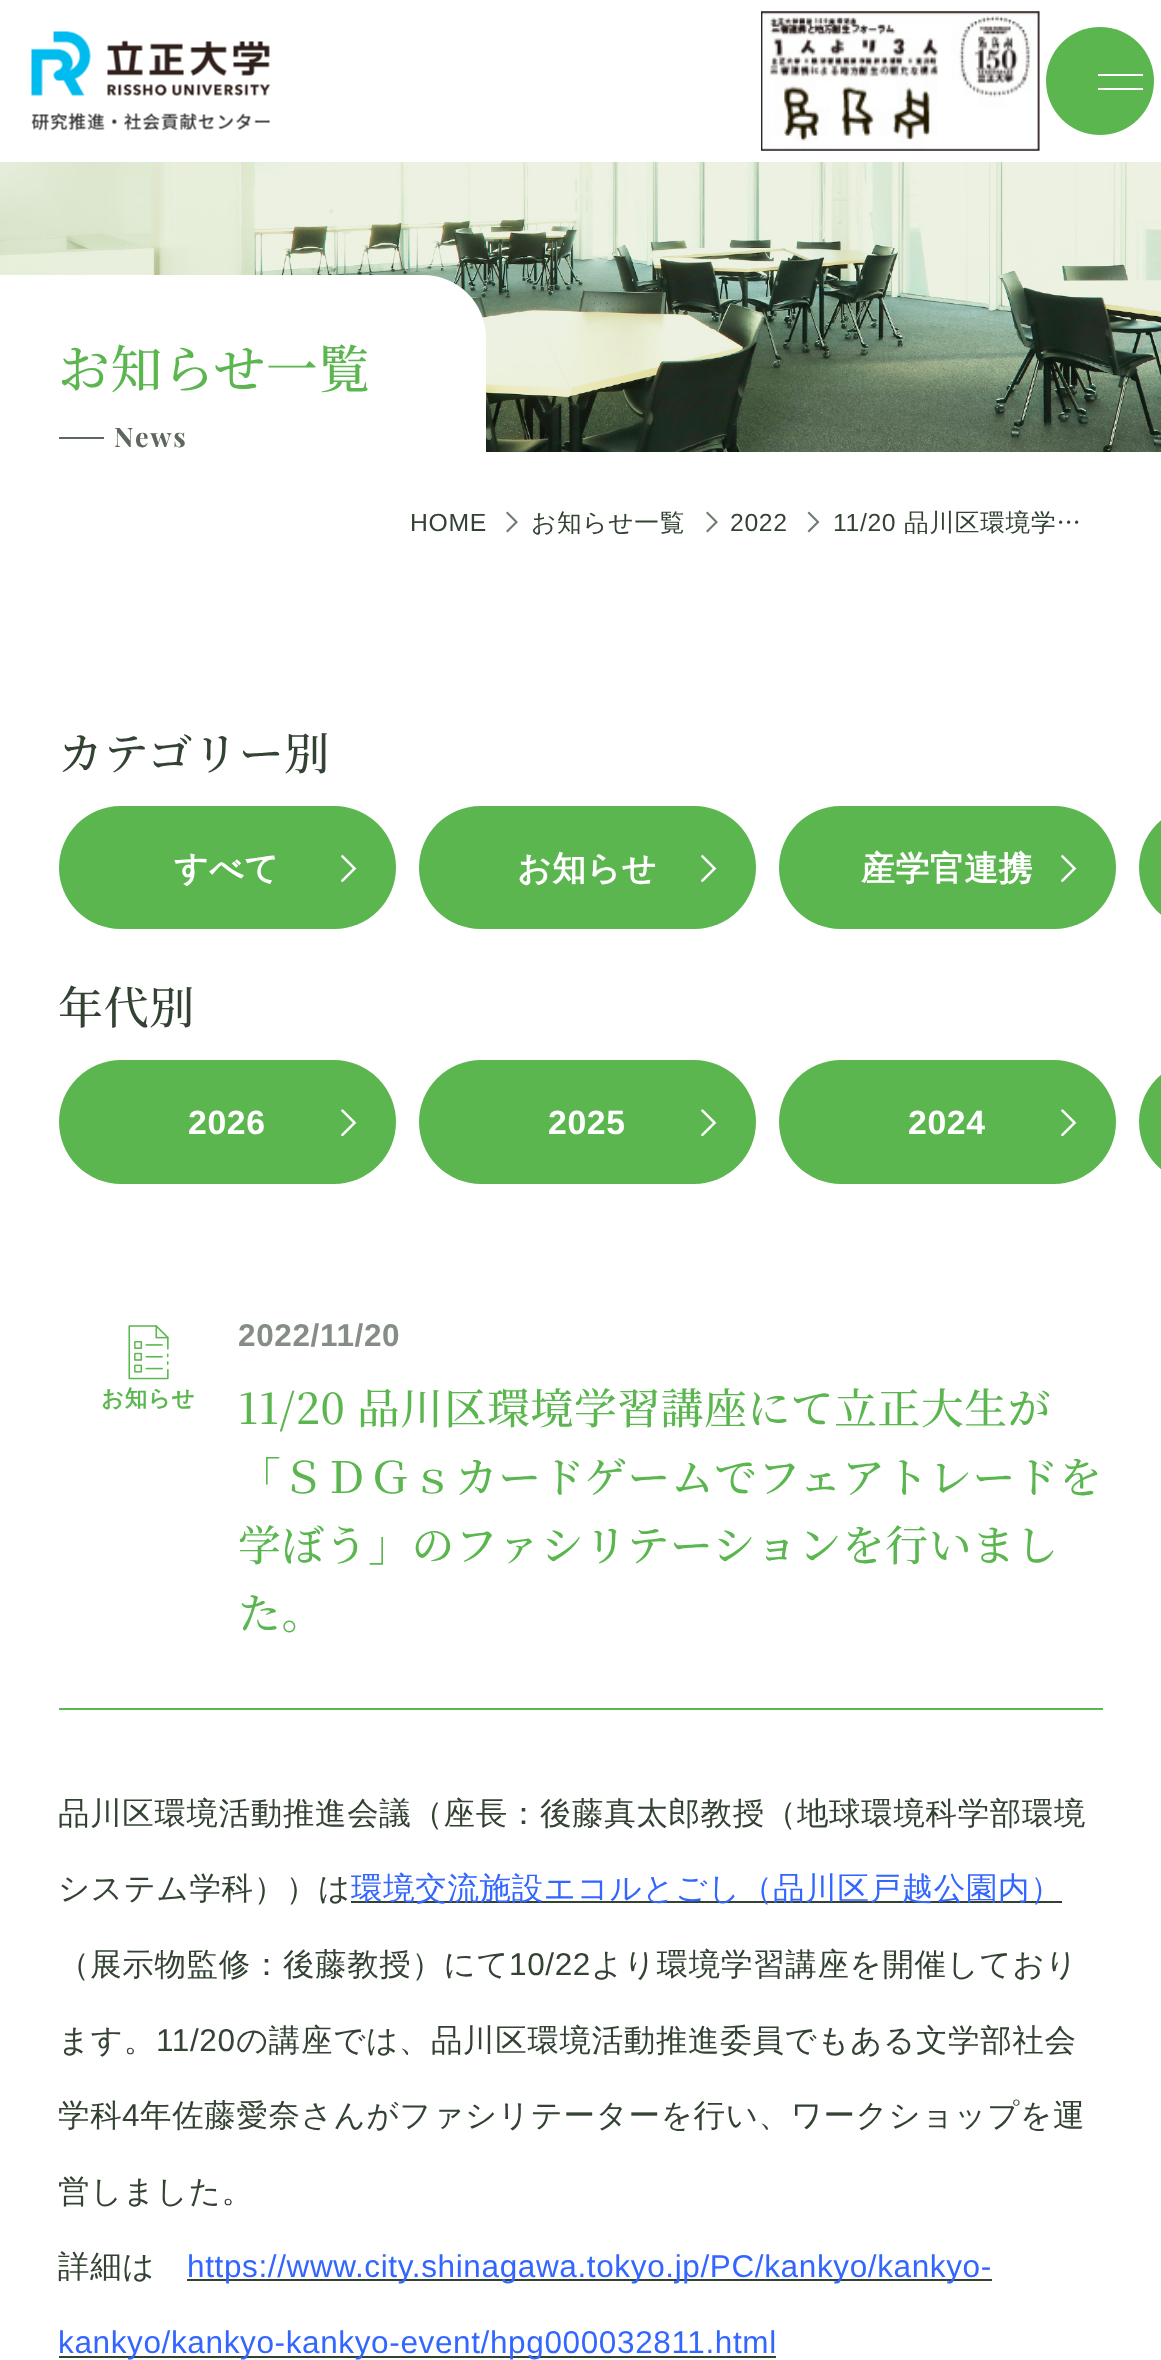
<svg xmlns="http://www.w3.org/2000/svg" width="1161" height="2360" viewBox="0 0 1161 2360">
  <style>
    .t1 { font: 200 51.75px Noto Serif JP; letter-spacing: 0.63px; fill: #5bb650; }
    .t2 { font: bold 27px Playfair Display; letter-spacing: 2px; fill: #5c685c; }
    .t3 { font: 24.75px Liberation Sans; letter-spacing: 0.63px; fill: #334233; }
    .t4 { font: 500 24.75px WenQuanYi Zen Hei; letter-spacing: 0.63px; fill: #334233; }
    .t5 { font: 200 45px Noto Serif JP; letter-spacing: 0.63px; fill: #334233; }
    .t6 { font: bold 33.75px WenQuanYi Zen Hei; letter-spacing: 0.63px; fill: #fff; }
    .t7 { font: bold 33.75px Liberation Sans; letter-spacing: 0.63px; fill: #fff; }
    .t8 { font: bold 22.5px WenQuanYi Zen Hei; letter-spacing: 0.63px; fill: #5bb650; }
    .t9 { font: bold 31.5px Liberation Sans; letter-spacing: 0.63px; fill: #858e85; }
    .t10 { font: 200 42.75px Noto Serif JP; letter-spacing: 0.63px; fill: #5bb650; }
    .t11 { font: 500 31.5px WenQuanYi Zen Hei; letter-spacing: 0.63px; fill: #334233; }
    .t12 { font: 500 31.5px WenQuanYi Zen Hei; letter-spacing: 0.63px; fill: #36f; }
    .t13 { font: 31.5px Liberation Sans; letter-spacing: 0.63px; fill: #334233; }
    .t14 { font: 31.5px Liberation Sans; letter-spacing: 0.63px; fill: #36f; }
  </style>
  <rect width="100%" height="100%" fill="#fff"/>
  <image x="31" y="31" width="240" height="100" href="images/1.png"/>
  <image x="761" y="11" width="279" height="140" href="images/2.png"/>
  <circle cx="1100" cy="81" r="54" fill="#5bb650"/>
  <rect x="1098" y="74" width="45" height="2" fill="#fff"/>
  <rect x="1098" y="88" width="45" height="2" fill="#fff"/>
  <image x="0" y="162" width="1161" height="290" href="images/3.png"/>
  <path d="M0 275H423C458 275 486 303 486 338V452H0Z" fill="#fff"/>
  <text x="58" y="388" class="t1">お知らせ一覧</text>
  <rect x="59" y="437" width="45" height="2" fill="#5c685c"/>
  <text x="114" y="447" class="t2">News</text>
  <text x="410" y="531" class="t3">HOME</text>
  <path d="M507.5 511.5L506 513L515 522L506 531L507.5 532.5L518 522Z" fill="#707b70"/>
  <text x="531" y="531" class="t4">お知らせ一覧</text>
  <path d="M707.5 511.5L706 513L715 522L706 531L707.5 532.5L718 522Z" fill="#707b70"/>
  <text x="730" y="531" class="t3">2022</text>
  <path d="M809 511.5L807.5 513L816.5 522L807.5 531L809 532.5L819.5 522Z" fill="#707b70"/>
  <text x="833" y="531" class="t3">11/20</text>
  <text x="904" y="531" class="t4">品川区環境学…</text>
  <text x="58" y="770" class="t5">カテゴリー別</text>
  <rect x="59" y="806" width="337" height="123" rx="61.5" fill="#5bb650"/>
  <text x="174" y="880" class="t6">すべて</text>
  <image x="341" y="855" width="16" height="27" href="images/4.png"/>
  <rect x="419" y="806" width="337" height="123" rx="61.5" fill="#5bb650"/>
  <text x="517" y="880" class="t6">お知らせ</text>
  <image x="701" y="855" width="16" height="27" href="images/4.png"/>
  <rect x="779" y="806" width="337" height="123" rx="61.5" fill="#5bb650"/>
  <text x="861" y="880" class="t6">産学官連携</text>
  <image x="1061" y="855" width="16" height="27" href="images/4.png"/>
  <path d="M1200.5 806H1161V929H1200.5C1166.5 929 1139 901.5 1139 867.5C1139 833.5 1166.5 806 1200.5 806Z" fill="#5bb650"/>
  <text x="58" y="1024" class="t5">年代別</text>
  <rect x="59" y="1060" width="337" height="124" rx="62" fill="#5bb650"/>
  <text x="188" y="1134" class="t7">2026</text>
  <image x="341" y="1109" width="16" height="27" href="images/5.png"/>
  <rect x="419" y="1060" width="337" height="124" rx="62" fill="#5bb650"/>
  <text x="548" y="1134" class="t7">2025</text>
  <image x="701" y="1109" width="16" height="27" href="images/5.png"/>
  <rect x="779" y="1060" width="337" height="124" rx="62" fill="#5bb650"/>
  <text x="908" y="1134" class="t7">2024</text>
  <image x="1061" y="1109" width="16" height="27" href="images/5.png"/>
  <path d="M1201 1060H1161V1184H1201C1167 1184 1139 1156 1139 1122C1139 1088 1167 1060 1201 1060Z" fill="#5bb650"/>
  <rect x="59" y="1708" width="1044" height="2" fill="#5bb650"/>
  <image x="128" y="1325" width="41" height="55" href="images/6.png"/>
  <text x="101" y="1406" class="t8">お知らせ</text>
  <text x="238" y="1346" class="t9">2022/11/20</text>
  <text x="238" y="1424" class="t10">11/20 品川区環境学習講座にて立正大生が</text>
  <text x="238" y="1493" class="t10">「ＳＤＧｓカードゲームでフェアトレードを</text>
  <text x="238" y="1561" class="t10">学ぼう」のファシリテーションを行いまし</text>
  <text x="238" y="1629" class="t10">た。</text>
  <text x="58" y="1824" class="t11">品川区環境活動推進会議（座長：後藤真太郎教授（地球環境科学部環境</text>
  <text x="58" y="1899" class="t11">システム学科））は</text>
  <rect x="351" y="1901" width="711" height="2" fill="#334233"/>
  <text x="351" y="1899" class="t12">環境交流施設エコルとごし（品川区戸越公園内）</text>
  <text x="58" y="1975" class="t11">（展示物監修：後藤教授）にて</text>
  <text x="509" y="1975" class="t13">10/22</text>
  <text x="591" y="1975" class="t11">より環境学習講座を開催しており</text>
  <text x="58" y="2051" class="t11">ます。</text>
  <text x="156" y="2051" class="t13">11/20</text>
  <text x="236" y="2051" class="t11">の講座では、品川区環境活動推進委員でもある文学部社会</text>
  <text x="58" y="2126" class="t11">学科</text>
  <text x="122" y="2126" class="t13">4</text>
  <text x="140" y="2126" class="t11">年佐藤愛奈さんがファシリテーターを行い、ワークショップを運</text>
  <text x="58" y="2202" class="t11">営しました。</text>
  <text x="58" y="2277" class="t11">詳細は</text>
  <rect x="187" y="2279" width="805" height="2" fill="#334233"/>
  <text x="187" y="2277" class="t14">https://www.city.shinagawa.tokyo.jp/PC/kankyo/kankyo-</text>
  <rect x="59" y="2356" width="717" height="2" fill="#334233"/>
  <text x="58" y="2353" class="t14">kankyo/kankyo-kankyo-event/hpg000032811.html</text>
</svg>
